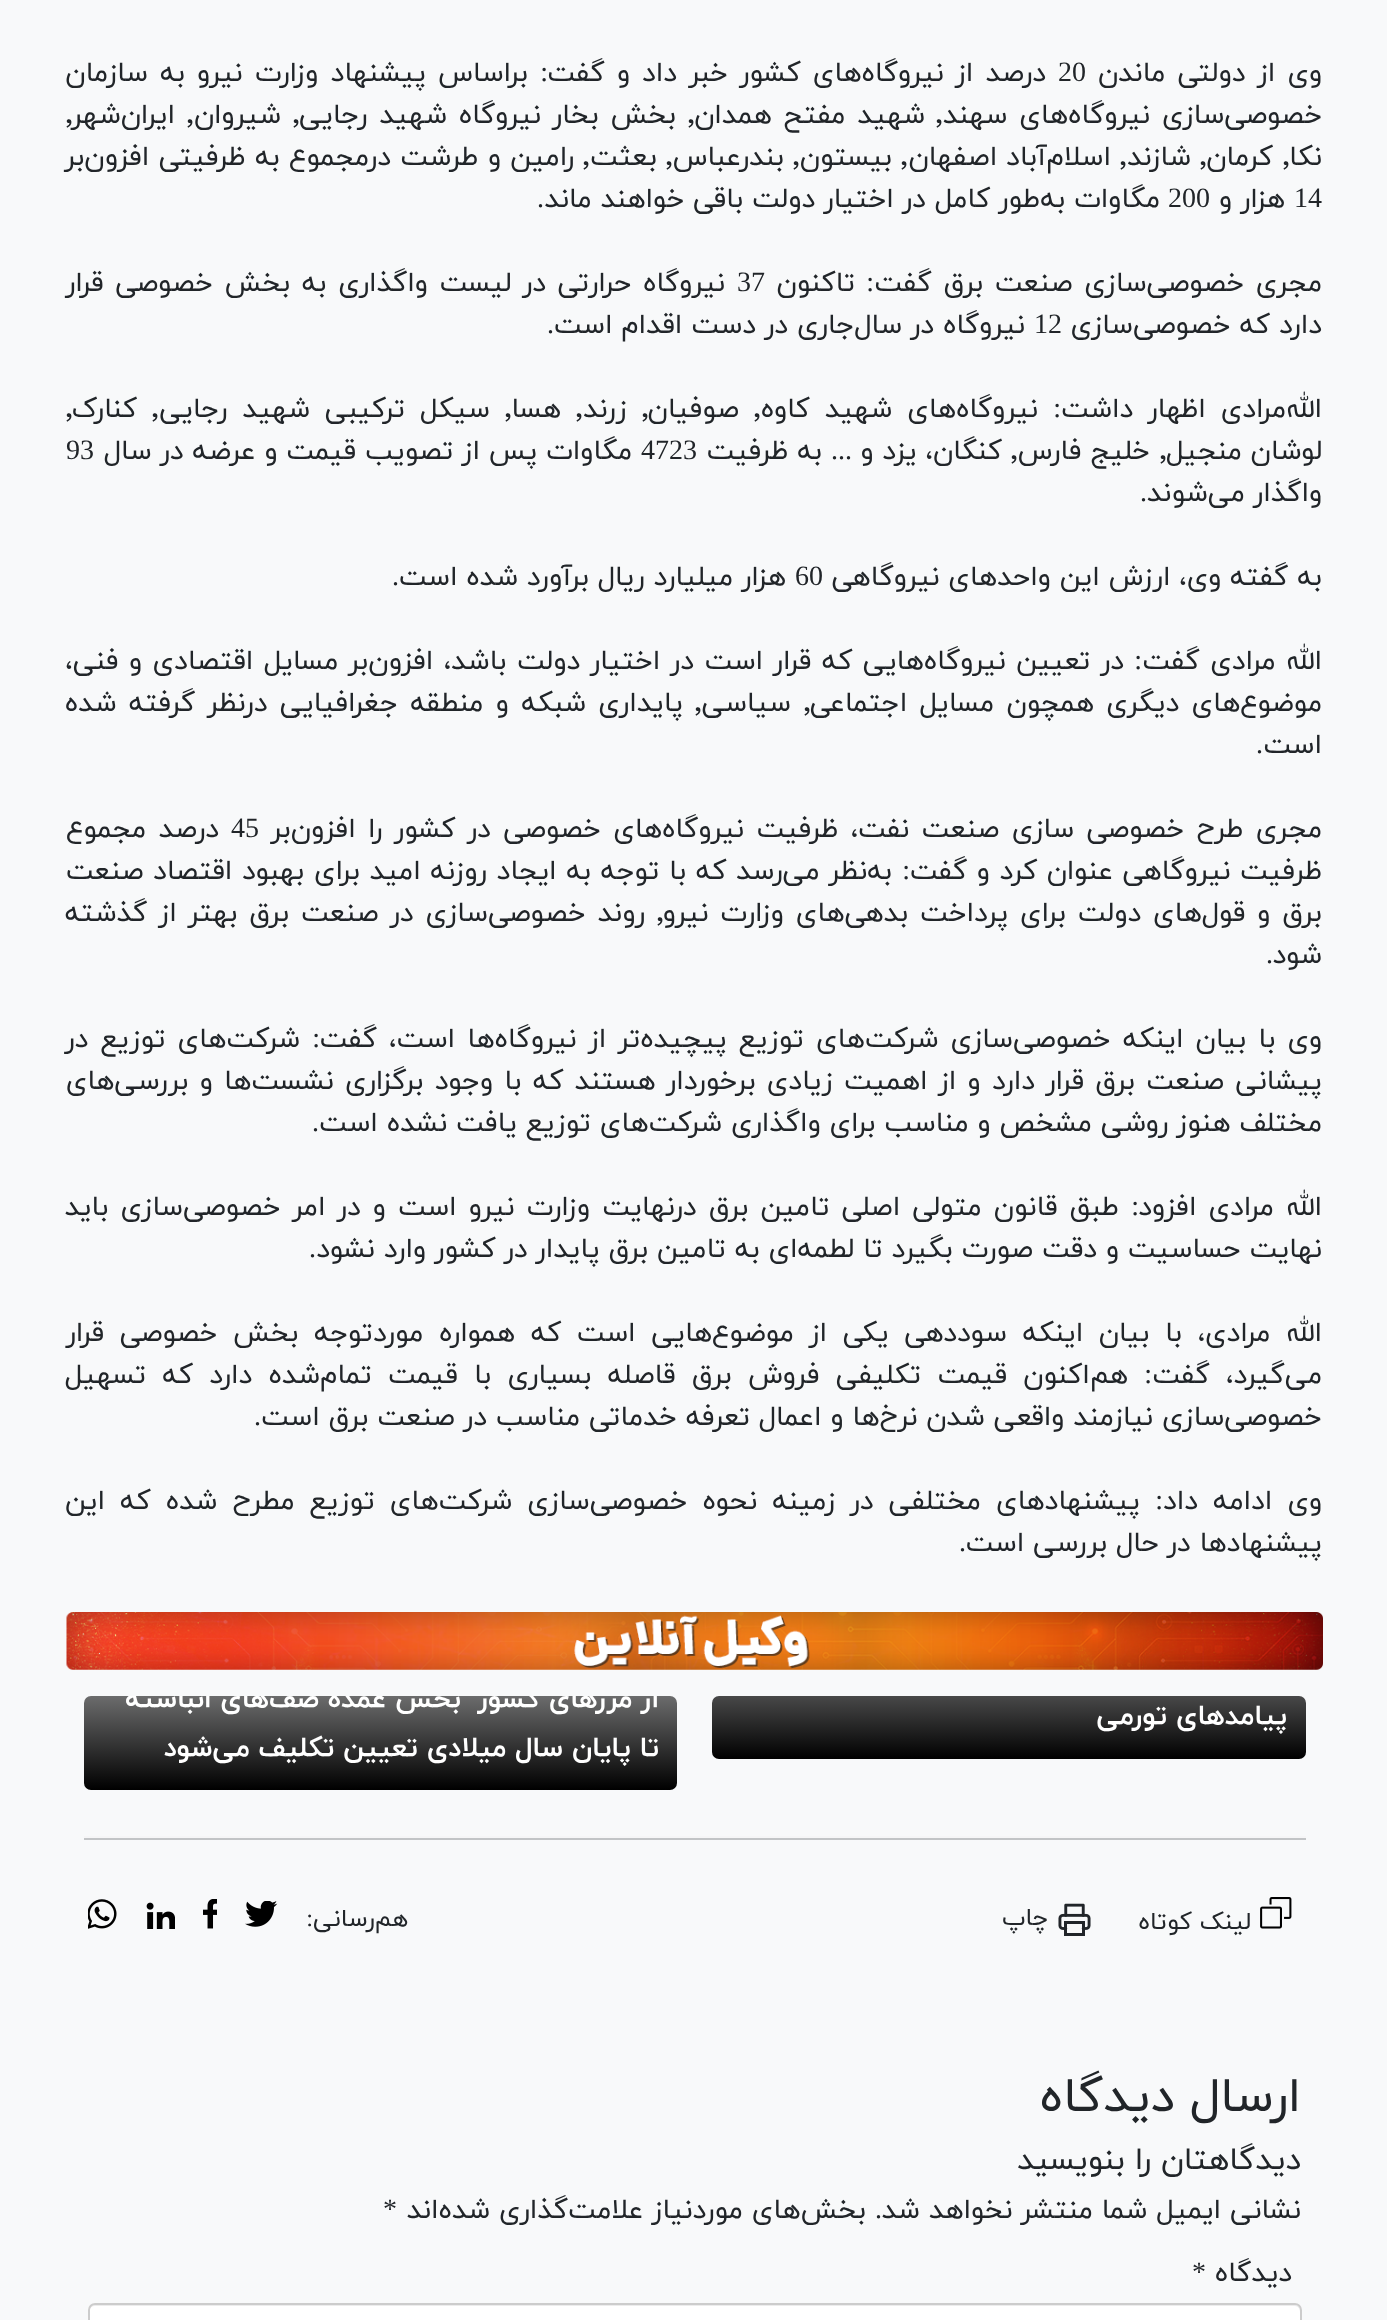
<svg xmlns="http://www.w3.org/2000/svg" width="1387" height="2320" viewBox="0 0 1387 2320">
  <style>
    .t1 { font: 28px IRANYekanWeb; direction: rtl; fill: #212529; }
    .t2 { font: 28px Liberation Serif; fill: #212529; }
    .t3 { font: 28px Liberation Serif; direction: rtl; fill: #212529; }
    .t4 { font: 28px IRANYekanWeb; fill: #212529; }
    .t5 { font: bold 28px IRANYekanWeb; direction: rtl; fill: #fff; }
    .t6 { font: 24.5px IRANYekanWeb; direction: rtl; fill: #212529; }
    .t7 { font: 24.5px Liberation Serif; direction: rtl; fill: #212529; }
    .t8 { font: 49px IRANYekanWeb; direction: rtl; fill: #212529; }
    .t9 { font: 31.5px IRANYekanWeb; direction: rtl; fill: #212529; }
  </style>
  <defs>
    <linearGradient id="g1" gradientUnits="userSpaceOnUse" x1="1009" y1="1542" x2="1009" y2="1759"><stop offset="0" stop-color="#f8f9fa"/><stop offset="1" stop-color="#000"/></linearGradient>
    <linearGradient id="g2" gradientUnits="userSpaceOnUse" x1="381" y1="1573" x2="381" y2="1790"><stop offset="0" stop-color="#f8f9fa"/><stop offset="1" stop-color="#000"/></linearGradient>
    <clipPath id="clip1"><rect x="84" y="1696" width="593" height="94" rx="7"/></clipPath>
  </defs>
  <rect width="100%" height="100%" fill="#f8f9fa"/>
  <text x="1322" y="81" word-spacing="3.25" class="t1">وی از دولتی ماندن</text>
  <text x="1058" y="81" class="t2">20</text>
  <text x="1046" y="81" word-spacing="3.25" class="t1">درصد از نیروگاه‌های کشور خبر داد و گفت</text>
  <text x="548" y="81" class="t3">:</text>
  <text x="528" y="81" word-spacing="3.25" class="t1">براساس پیشنهاد وزارت نیرو به سازمان</text>
  <text x="1322" y="123" word-spacing="3" class="t1">خصوصی‌سازی نیروگاه‌های سهند</text>
  <text x="936" y="123" class="t4">٬</text>
  <text x="925" y="123" word-spacing="3" class="t1">شهید مفتح همدان</text>
  <text x="688" y="123" class="t4">٬</text>
  <text x="676" y="123" word-spacing="3" class="t1">بخش بخار نیروگاه شهید رجایی</text>
  <text x="293" y="123" class="t4">٬</text>
  <text x="281" y="123" class="t1">شیروان</text>
  <text x="187" y="123" class="t4">٬</text>
  <text x="66" y="123" class="t4">٬</text>
  <text x="175" y="123" class="t1">ایران‌شهر</text>
  <text x="1322" y="165" class="t1">نکا</text>
  <text x="1283" y="165" class="t4">٬</text>
  <text x="1273" y="165" class="t1">کرمان</text>
  <text x="1200" y="165" class="t4">٬</text>
  <text x="1191" y="165" class="t1">شازند</text>
  <text x="1120" y="165" class="t4">٬</text>
  <text x="1111" y="165" class="t1">اسلام‌آباد اصفهان</text>
  <text x="901" y="165" class="t4">٬</text>
  <text x="892" y="165" class="t1">بیستون</text>
  <text x="793" y="165" class="t4">٬</text>
  <text x="784" y="165" class="t1">بندرعباس</text>
  <text x="666" y="165" class="t4">٬</text>
  <text x="657" y="165" class="t1">بعثت</text>
  <text x="583" y="165" class="t4">٬</text>
  <text x="574" y="165" word-spacing="0.5" class="t1">رامین و طرشت درمجموع به ظرفیتی افزون‌بر</text>
  <text x="1294" y="207" class="t2">14</text>
  <text x="1285" y="207" class="t1">هزار و</text>
  <text x="1168" y="207" class="t2">200</text>
  <text x="1160" y="207" class="t1">مگاوات به‌طور کامل در اختیار دولت باقی خواهند ماند</text>
  <text x="544" y="207" class="t3">.</text>
  <text x="1322" y="291" word-spacing="2.75" class="t1">مجری خصوصی‌سازی صنعت برق گفت</text>
  <text x="874" y="291" class="t3">:</text>
  <text x="855" y="291" class="t1">تاکنون</text>
  <text x="737" y="291" class="t2">37</text>
  <text x="725" y="291" word-spacing="2.75" class="t1">نیروگاه حرارتی در لیست واگذاری به بخش خصوصی قرار</text>
  <text x="1322" y="333" class="t1">دارد که خصوصی‌سازی</text>
  <text x="1034" y="333" class="t2">12</text>
  <text x="1025" y="333" class="t1">نیروگاه در سال‌جاری در دست اقدام است</text>
  <text x="554" y="333" class="t3">.</text>
  <text x="1322" y="417" word-spacing="6" class="t1">الله‌مرادی اظهار داشت</text>
  <text x="1061" y="417" class="t3">:</text>
  <text x="1038" y="417" word-spacing="6" class="t1">نیروگاه‌های شهید کاوه</text>
  <text x="754" y="417" class="t4">٬</text>
  <text x="739" y="417" class="t1">صوفیان</text>
  <text x="642" y="417" class="t4">٬</text>
  <text x="627" y="417" class="t1">زرند</text>
  <text x="576" y="417" class="t4">٬</text>
  <text x="561" y="417" class="t1">هسا</text>
  <text x="505" y="417" class="t4">٬</text>
  <text x="490" y="417" word-spacing="6" class="t1">سیکل ترکیبی شهید رجایی</text>
  <text x="152" y="417" class="t4">٬</text>
  <text x="137" y="417" class="t1">کنارک</text>
  <text x="66" y="417" class="t4">٬</text>
  <text x="1322" y="459" class="t1">لوشان منجیل</text>
  <text x="1160" y="459" class="t4">٬</text>
  <text x="1150" y="459" class="t1">خلیج فارس</text>
  <text x="1011" y="459" class="t4">٬</text>
  <text x="1002" y="459" class="t1">کنگان، یزد و</text>
  <text x="852" y="459" class="t3">...</text>
  <text x="822" y="459" class="t1">به ظرفیت</text>
  <text x="641" y="459" class="t2">4723</text>
  <text x="632" y="459" class="t1">مگاوات پس از تصویب قیمت و عرضه در سال</text>
  <text x="66" y="459" class="t2">93</text>
  <text x="1322" y="501" class="t1">واگذار می‌شوند</text>
  <text x="1147" y="501" class="t3">.</text>
  <text x="1322" y="585" class="t1">به گفته وی، ارزش این واحدهای نیروگاهی</text>
  <text x="795" y="585" class="t2">60</text>
  <text x="786" y="585" class="t1">هزار میلیارد ریال برآورد شده است</text>
  <text x="399" y="585" class="t3">.</text>
  <text x="1322" y="669" word-spacing="1.6" class="t1">الله مرادی گفت</text>
  <text x="1142" y="669" class="t3">:</text>
  <text x="1124" y="669" word-spacing="1.6" class="t1">در تعیین نیروگاه‌هایی که قرار است در اختیار دولت باشد، افزون‌بر مسایل اقتصادی و فنی،</text>
  <text x="1322" y="711" word-spacing="3.5" class="t1">موضوع‌های دیگری همچون مسایل اجتماعی</text>
  <text x="804" y="711" class="t4">٬</text>
  <text x="791" y="711" class="t1">سیاسی</text>
  <text x="695" y="711" class="t4">٬</text>
  <text x="683" y="711" word-spacing="3.5" class="t1">پایداری شبکه و منطقه جغرافیایی درنظر گرفته شده</text>
  <text x="1322" y="753" class="t1">است</text>
  <text x="1263" y="753" class="t3">.</text>
  <text x="1322" y="837" word-spacing="3.5" class="t1">مجری طرح خصوصی سازی صنعت نفت، ظرفیت نیروگاه‌های خصوصی در کشور را افزون‌بر</text>
  <text x="231" y="837" class="t2">45</text>
  <text x="219" y="837" word-spacing="3.5" class="t1">درصد مجموع</text>
  <text x="1322" y="879" word-spacing="0.75" class="t1">ظرفیت نیروگاهی عنوان کرد و گفت</text>
  <text x="910" y="879" class="t3">:</text>
  <text x="892" y="879" word-spacing="0.75" class="t1">به‌نظر می‌رسد که با توجه به ایجاد روزنه امید برای بهبود اقتصاد صنعت</text>
  <text x="1322" y="921" word-spacing="3" class="t1">برق و قول‌های دولت برای پرداخت بدهی‌های وزارت نیرو</text>
  <text x="657" y="921" class="t4">٬</text>
  <text x="645" y="921" word-spacing="3" class="t1">روند خصوصی‌سازی در صنعت برق بهتر از گذشته</text>
  <text x="1322" y="963" class="t1">شود</text>
  <text x="1273" y="963" class="t3">.</text>
  <text x="1322" y="1047" word-spacing="3.25" class="t1">وی با بیان اینکه خصوصی‌سازی شرکت‌های توزیع پیچیده‌تر از نیروگاه‌ها است، گفت</text>
  <text x="320" y="1047" class="t3">:</text>
  <text x="300" y="1047" word-spacing="3.25" class="t1">شرکت‌های توزیع در</text>
  <text x="1322" y="1089" word-spacing="2.4" class="t1">پیشانی صنعت برق قرار دارد و از اهمیت زیادی برخوردار هستند که با وجود برگزاری نشست‌ها و بررسی‌های</text>
  <text x="1322" y="1131" class="t1">مختلف هنوز روشی مشخص و مناسب برای واگذاری شرکت‌های توزیع یافت نشده است</text>
  <text x="319" y="1131" class="t3">.</text>
  <text x="1322" y="1215" word-spacing="3.25" class="t1">الله مرادی افزود</text>
  <text x="1139" y="1215" class="t3">:</text>
  <text x="1119" y="1215" word-spacing="3.25" class="t1">طبق قانون متولی اصلی تامین برق درنهایت وزارت نیرو است و در امر خصوصی‌سازی باید</text>
  <text x="1322" y="1257" class="t1">نهایت حساسیت و دقت صورت بگیرد تا لطمه‌ای به تامین برق پایدار در کشور وارد نشود</text>
  <text x="316" y="1257" class="t3">.</text>
  <text x="1322" y="1341" word-spacing="6.75" class="t1">الله مرادی، با بیان اینکه سوددهی یکی از موضوع‌هایی است که همواره موردتوجه بخش خصوصی قرار</text>
  <text x="1322" y="1383" word-spacing="7.4" class="t1">می‌گیرد، گفت</text>
  <text x="1152" y="1383" class="t3">:</text>
  <text x="1128" y="1383" word-spacing="7.4" class="t1">هم‌اکنون قیمت تکلیفی فروش برق قاصله بسیاری با قیمت تمام‌شده دارد که تسهیل</text>
  <text x="1322" y="1425" class="t1">خصوصی‌سازی نیازمند واقعی شدن نرخ‌ها و اعمال تعرفه خدماتی مناسب در صنعت برق است</text>
  <text x="261" y="1425" class="t3">.</text>
  <text x="1322" y="1509" word-spacing="6.25" class="t1">وی ادامه داد</text>
  <text x="1163" y="1509" class="t3">:</text>
  <text x="1140" y="1509" word-spacing="6.25" class="t1">پیشنهادهای مختلفی در زمینه نحوه خصوصی‌سازی شرکت‌های توزیع مطرح شده که این</text>
  <text x="1322" y="1551" class="t1">پیشنهادها در حال بررسی است</text>
  <text x="966" y="1551" class="t3">.</text>
  <image x="66" y="1612" width="1257" height="58" href="images/1.png"/>
  <rect x="712" y="1696" width="594" height="63" rx="7" fill="url(#g1)"/>
  <text x="1287" y="1724" class="t5">پیامد‌های تورمی</text>
  <rect x="84" y="1696" width="593" height="94" rx="7" fill="url(#g2)"/>
  <g clip-path="url(#clip1)">
    <text x="659" y="1707" class="t5">از مرز‌های کشور</text>
    <text x="461" y="1707" class="t5">بخش عمده صف‌های انباشته</text>
  </g>
  <text x="659" y="1756" class="t5">تا پایان سال میلادی تعیین تکلیف می‌شود</text>
  <rect x="84" y="1838" width="1222" height="2" fill="#c2c4c6"/>
  <rect x="84" y="1836" width="1222" height="2" fill="#f6f6f7"/>
  <image x="1260" y="1897" width="32" height="32" href="images/2.png"/>
  <text x="1251" y="1929" class="t6">لینک کوتاه</text>
  <image x="1058" y="1903" width="33" height="33" href="images/3.png"/>
  <text x="1048" y="1925" class="t6">چاپ</text>
  <text x="408" y="1926" class="t6">هم‌رسانی</text>
  <text x="313" y="1926" class="t7">:</text>
  <image x="245" y="1901" width="33" height="26" href="images/4.png"/>
  <image x="203" y="1899" width="14" height="30" href="images/5.png"/>
  <image x="146" y="1902" width="29" height="27" href="images/6.png"/>
  <image x="88" y="1899" width="29" height="30" href="images/7.png"/>
  <text x="1301" y="2111" class="t8">ارسال دیدگاه</text>
  <text x="1301" y="2169" class="t9">دیدگاهتان را بنویسید</text>
  <text x="1301" y="2218" class="t1">نشانی ایمیل شما منتشر نخواهد شد</text>
  <text x="866" y="2218" class="t1">بخش‌های موردنیاز علامت‌گذاری شده‌اند</text>
  <text x="397" y="2218" class="t3">*</text>
  <text x="882" y="2218" class="t3">.</text>
  <text x="1292" y="2281" class="t1">دیدگاه</text>
  <text x="1192" y="2281" class="t2">*</text>
  <rect x="88" y="2303" width="1214" height="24" rx="7" fill="#fff"/>
  <path d="M94 2306H1295C1298 2306 1300 2309 1300 2312V2310C1300 2307 1298 2305 1295 2305H94C91 2305 89 2307 89 2310V2312C89 2309 92 2306 94 2306Z" fill="#ececec"/>
  <rect x="89" y="2304" width="1212" height="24" rx="6" fill="none" stroke="#ccc" stroke-width="2"/>
</svg>
